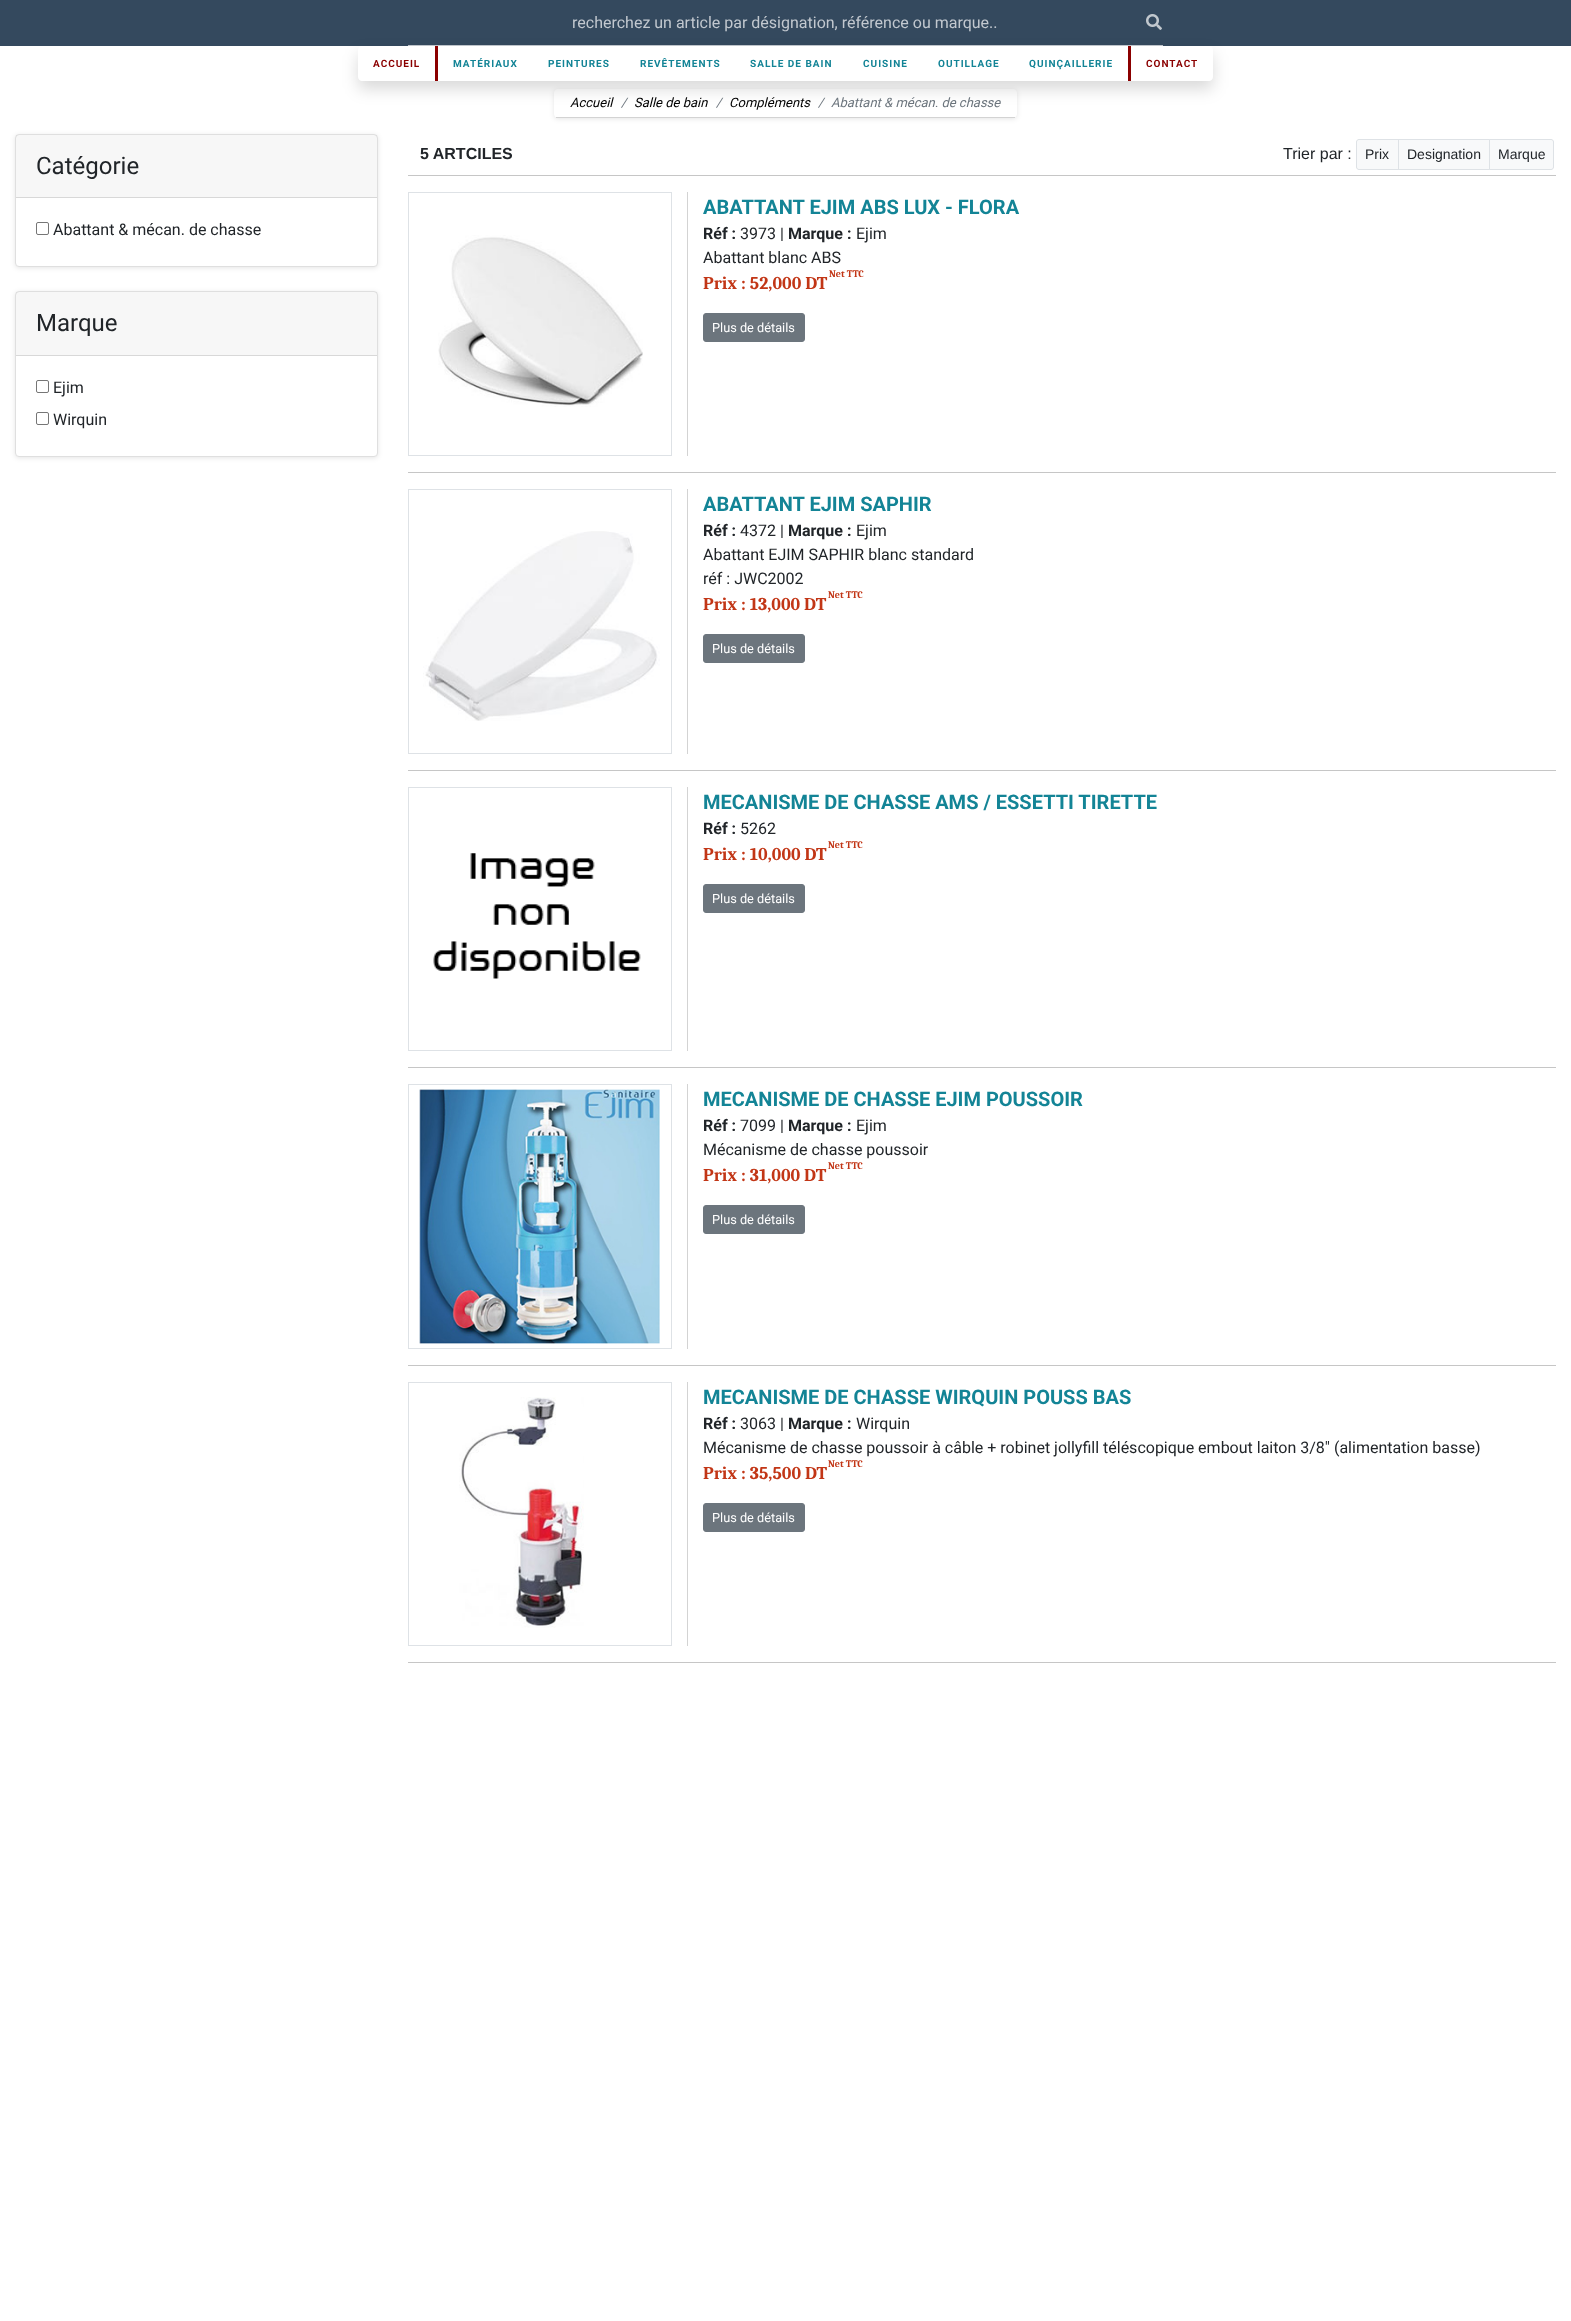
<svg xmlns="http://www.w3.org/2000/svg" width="1571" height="2321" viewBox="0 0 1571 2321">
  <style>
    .t1 { font: 16px Roboto; fill: #c2c8cf; }
    .t2 { font: bold 10px Roboto; letter-spacing: 1px; fill: #8b0000; }
    .t3 { font: bold 10px Roboto; letter-spacing: 1px; fill: #138496; }
    .t4 { font: italic 13px Roboto; fill: #000; }
    .t5 { font: italic 13px Roboto; fill: #6c757d; }
    .t6 { font: 24px Roboto; fill: #212529; }
    .t7 { font: 16px Roboto; fill: #212529; }
    .t8 { font: bold 16px Liberation Sans; fill: #212529; }
    .t9 { font: 16px Liberation Sans; fill: #212529; }
    .t10 { font: 14px Liberation Sans; fill: #212529; }
    .t11 { font: bold 20px Roboto; fill: #138496; }
    .t12 { font: bold 16px Roboto; fill: #212529; }
    .t13 { font: bold 10px Caladea; fill: #c23616; }
    .t14 { font: bold 18px Caladea; fill: #c23616; }
    .t15 { font: 12.75px Roboto; fill: #fff; }
  </style>
  <defs>
    <clipPath id="clip1"><path d="M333 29H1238V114H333ZM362 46H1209C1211 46 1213 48 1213 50V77C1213 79 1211 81 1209 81H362C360 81 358 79 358 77V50C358 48 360 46 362 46Z" clip-rule="evenodd"/></clipPath>
    <clipPath id="clip2"><path d="M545 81H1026V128H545ZM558 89H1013C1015 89 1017 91 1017 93V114C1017 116 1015 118 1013 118H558C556 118 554 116 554 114V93C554 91 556 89 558 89Z" clip-rule="evenodd"/></clipPath>
  </defs>
  <rect width="100%" height="100%" fill="#fff"/>
  <rect x="0" y="0" width="1571" height="46" fill="#34495e"/>
  <rect x="408" y="45" width="755" height="1" fill="#c2c8cf"/>
  <text x="572" y="28" class="t1">recherchez un article par désignation, référence ou marque..</text>
  <image x="1146" y="14" width="16" height="16" href="images/1.png"/>
  <g clip-path="url(#clip1)">
    <rect x="358" y="54" width="855" height="35" rx="4" fill="#00000026" filter="blur(8px)"/>
  </g>
  <rect x="435" y="46" width="3" height="35" fill="#8b0000"/>
  <text x="373" y="67" class="t2">ACCUEIL</text>
  <text x="453" y="67" class="t3">MATÉRIAUX</text>
  <text x="548" y="67" class="t3">PEINTURES</text>
  <text x="640" y="67" class="t3">REVÊTEMENTS</text>
  <text x="750" y="67" class="t3">SALLE DE BAIN</text>
  <text x="863" y="67" class="t3">CUISINE</text>
  <text x="938" y="67" class="t3">OUTILLAGE</text>
  <text x="1029" y="67" class="t3">QUINÇAILLERIE</text>
  <rect x="1128" y="46" width="3" height="35" fill="#8b0000"/>
  <text x="1146" y="67" class="t2">CONTACT</text>
  <g clip-path="url(#clip2)">
    <rect x="554" y="90" width="463" height="29" rx="4" fill="#0000001a" filter="blur(2.5px)"/>
  </g>
  <rect x="556" y="117" width="459" height="1" fill="#d3d3d3"/>
  <text x="570" y="107" class="t4">Accueil</text>
  <text x="621" y="107" class="t5">/</text>
  <text x="634" y="107" class="t4">Salle de bain</text>
  <text x="716" y="107" class="t5">/</text>
  <text x="729" y="107" class="t4">Compléments</text>
  <text x="818" y="107" class="t5">/</text>
  <text x="831" y="107" class="t5">Abattant &amp; mécan. de chasse</text>
  <rect x="15" y="135" width="363" height="133" rx="4" fill="#0000001a" filter="blur(2.5px)"/>
  <rect x="15.5" y="134.5" width="362" height="132" rx="3.5" fill="#fff" stroke="#dfdfdf"/>
  <rect x="16" y="135" width="361" height="62" fill="#00000008"/>
  <rect x="16" y="197" width="361" height="1" fill="#d8d8d8"/>
  <text x="36" y="174" class="t6">Catégorie</text>
  <rect x="36.5" y="222.5" width="12" height="12" rx="1.5" fill="none" stroke="#767676"/>
  <text x="53" y="235" class="t7">Abattant &amp; mécan. de chasse</text>
  <rect x="15" y="292" width="363" height="166" rx="4" fill="#0000001a" filter="blur(2.5px)"/>
  <rect x="15.5" y="291.5" width="362" height="165" rx="3.5" fill="#fff" stroke="#dfdfdf"/>
  <rect x="16" y="292" width="361" height="63" fill="#00000008"/>
  <rect x="16" y="355" width="361" height="1" fill="#d8d8d8"/>
  <text x="36" y="331" class="t6">Marque</text>
  <rect x="36.5" y="380.5" width="12" height="12" rx="1.5" fill="none" stroke="#767676"/>
  <text x="53" y="393" class="t7">Ejim</text>
  <rect x="36.5" y="412.5" width="12" height="12" rx="1.5" fill="none" stroke="#767676"/>
  <text x="53" y="425" class="t7">Wirquin</text>
  <text x="420" y="159" class="t8">5 ARTCILES</text>
  <text x="1283" y="159" class="t9">Trier par :</text>
  <path d="M1359 139.5H1398.5V169.5H1359C1357.5 169.5 1356.5 168.5 1356.5 167V142C1356.5 140.5 1357.5 139.5 1359 139.5Z" fill="#f8f9fa" stroke="#dee2e6"/>
  <text x="1365" y="159" class="t10">Prix</text>
  <rect x="1398.5" y="139.5" width="91" height="30" fill="#f8f9fa" stroke="#dee2e6"/>
  <text x="1407" y="159" class="t10">Designation</text>
  <path d="M1489.5 139.5H1551C1552.5 139.5 1553.5 140.5 1553.5 142V167C1553.5 168.5 1552.5 169.5 1551 169.5H1489.5Z" fill="#f8f9fa" stroke="#dee2e6"/>
  <text x="1498" y="159" class="t10">Marque</text>
  <rect x="408" y="175" width="1148" height="1" fill="#c6c6c6"/>
  <rect x="408.5" y="192.5" width="263" height="263" fill="none" stroke="#dee2e6"/>
  <image x="438" y="235" width="205" height="172" href="images/2.png"/>
  <rect x="687" y="192" width="1" height="264" fill="#d3d3d3"/>
  <text x="703" y="214" class="t11">ABATTANT EJIM ABS LUX - FLORA</text>
  <text x="703" y="239" class="t12">Réf :</text>
  <text x="740" y="239" class="t7">3973 |</text>
  <text x="788" y="239" class="t12">Marque :</text>
  <text x="856" y="239" class="t7">Ejim</text>
  <text x="703" y="263" class="t7">Abattant blanc ABS</text>
  <text x="829" y="277" class="t13">Net TTC</text>
  <text x="703" y="289" class="t14">Prix : 52,000 DT</text>
  <rect x="703.5" y="313.5" width="101" height="28" rx="2.5" fill="#6c757d" stroke="#6c757d"/>
  <text x="712" y="332" class="t15">Plus de détails</text>
  <rect x="408" y="472" width="1148" height="1" fill="#c6c6c6"/>
  <rect x="408.5" y="489.5" width="263" height="264" fill="none" stroke="#dee2e6"/>
  <image x="423" y="531" width="237" height="190" href="images/3.png"/>
  <rect x="687" y="489" width="1" height="265" fill="#d3d3d3"/>
  <text x="703" y="511" class="t11">ABATTANT EJIM SAPHIR</text>
  <text x="703" y="536" class="t12">Réf :</text>
  <text x="740" y="536" class="t7">4372 |</text>
  <text x="788" y="536" class="t12">Marque :</text>
  <text x="856" y="536" class="t7">Ejim</text>
  <text x="703" y="560" class="t7">Abattant EJIM SAPHIR blanc standard</text>
  <text x="703" y="584" class="t7">réf : JWC2002</text>
  <text x="828" y="598" class="t13">Net TTC</text>
  <text x="703" y="610" class="t14">Prix : 13,000 DT</text>
  <rect x="703.5" y="634.5" width="101" height="28" rx="2.5" fill="#6c757d" stroke="#6c757d"/>
  <text x="712" y="653" class="t15">Plus de détails</text>
  <rect x="408" y="770" width="1148" height="1" fill="#c6c6c6"/>
  <rect x="408.5" y="787.5" width="263" height="263" fill="none" stroke="#dee2e6"/>
  <image x="433" y="853" width="208" height="126" href="images/4.png"/>
  <rect x="687" y="787" width="1" height="264" fill="#d3d3d3"/>
  <text x="703" y="809" class="t11">MECANISME DE CHASSE AMS / ESSETTI TIRETTE</text>
  <text x="703" y="834" class="t12">Réf :</text>
  <text x="740" y="834" class="t7">5262</text>
  <text x="828" y="848" class="t13">Net TTC</text>
  <text x="703" y="860" class="t14">Prix : 10,000 DT</text>
  <rect x="703.5" y="884.5" width="101" height="28" rx="2.5" fill="#6c757d" stroke="#6c757d"/>
  <text x="712" y="903" class="t15">Plus de détails</text>
  <rect x="408" y="1067" width="1148" height="1" fill="#c6c6c6"/>
  <rect x="408.5" y="1084.5" width="263" height="264" fill="none" stroke="#dee2e6"/>
  <image x="419" y="1089" width="241" height="255" href="images/5.png"/>
  <rect x="687" y="1084" width="1" height="265" fill="#d3d3d3"/>
  <text x="703" y="1106" class="t11">MECANISME DE CHASSE EJIM POUSSOIR</text>
  <text x="703" y="1131" class="t12">Réf :</text>
  <text x="740" y="1131" class="t7">7099 |</text>
  <text x="788" y="1131" class="t12">Marque :</text>
  <text x="856" y="1131" class="t7">Ejim</text>
  <text x="703" y="1155" class="t7">Mécanisme de chasse poussoir</text>
  <text x="828" y="1169" class="t13">Net TTC</text>
  <text x="703" y="1181" class="t14">Prix : 31,000 DT</text>
  <rect x="703.5" y="1205.5" width="101" height="28" rx="2.5" fill="#6c757d" stroke="#6c757d"/>
  <text x="712" y="1224" class="t15">Plus de détails</text>
  <rect x="408" y="1365" width="1148" height="1" fill="#c6c6c6"/>
  <rect x="408.5" y="1382.5" width="263" height="263" fill="none" stroke="#dee2e6"/>
  <image x="459" y="1397" width="125" height="231" href="images/6.png"/>
  <rect x="687" y="1382" width="1" height="264" fill="#d3d3d3"/>
  <text x="703" y="1404" class="t11">MECANISME DE CHASSE WIRQUIN POUSS BAS</text>
  <text x="703" y="1429" class="t12">Réf :</text>
  <text x="740" y="1429" class="t7">3063 |</text>
  <text x="788" y="1429" class="t12">Marque :</text>
  <text x="856" y="1429" class="t7">Wirquin</text>
  <text x="703" y="1453" class="t7">Mécanisme de chasse poussoir à câble + robinet jollyfill téléscopique embout laiton 3/8" (alimentation basse)</text>
  <text x="828" y="1467" class="t13">Net TTC</text>
  <text x="703" y="1479" class="t14">Prix : 35,500 DT</text>
  <rect x="703.5" y="1503.5" width="101" height="28" rx="2.5" fill="#6c757d" stroke="#6c757d"/>
  <text x="712" y="1522" class="t15">Plus de détails</text>
  <rect x="408" y="1662" width="1148" height="1" fill="#c6c6c6"/>
</svg>
